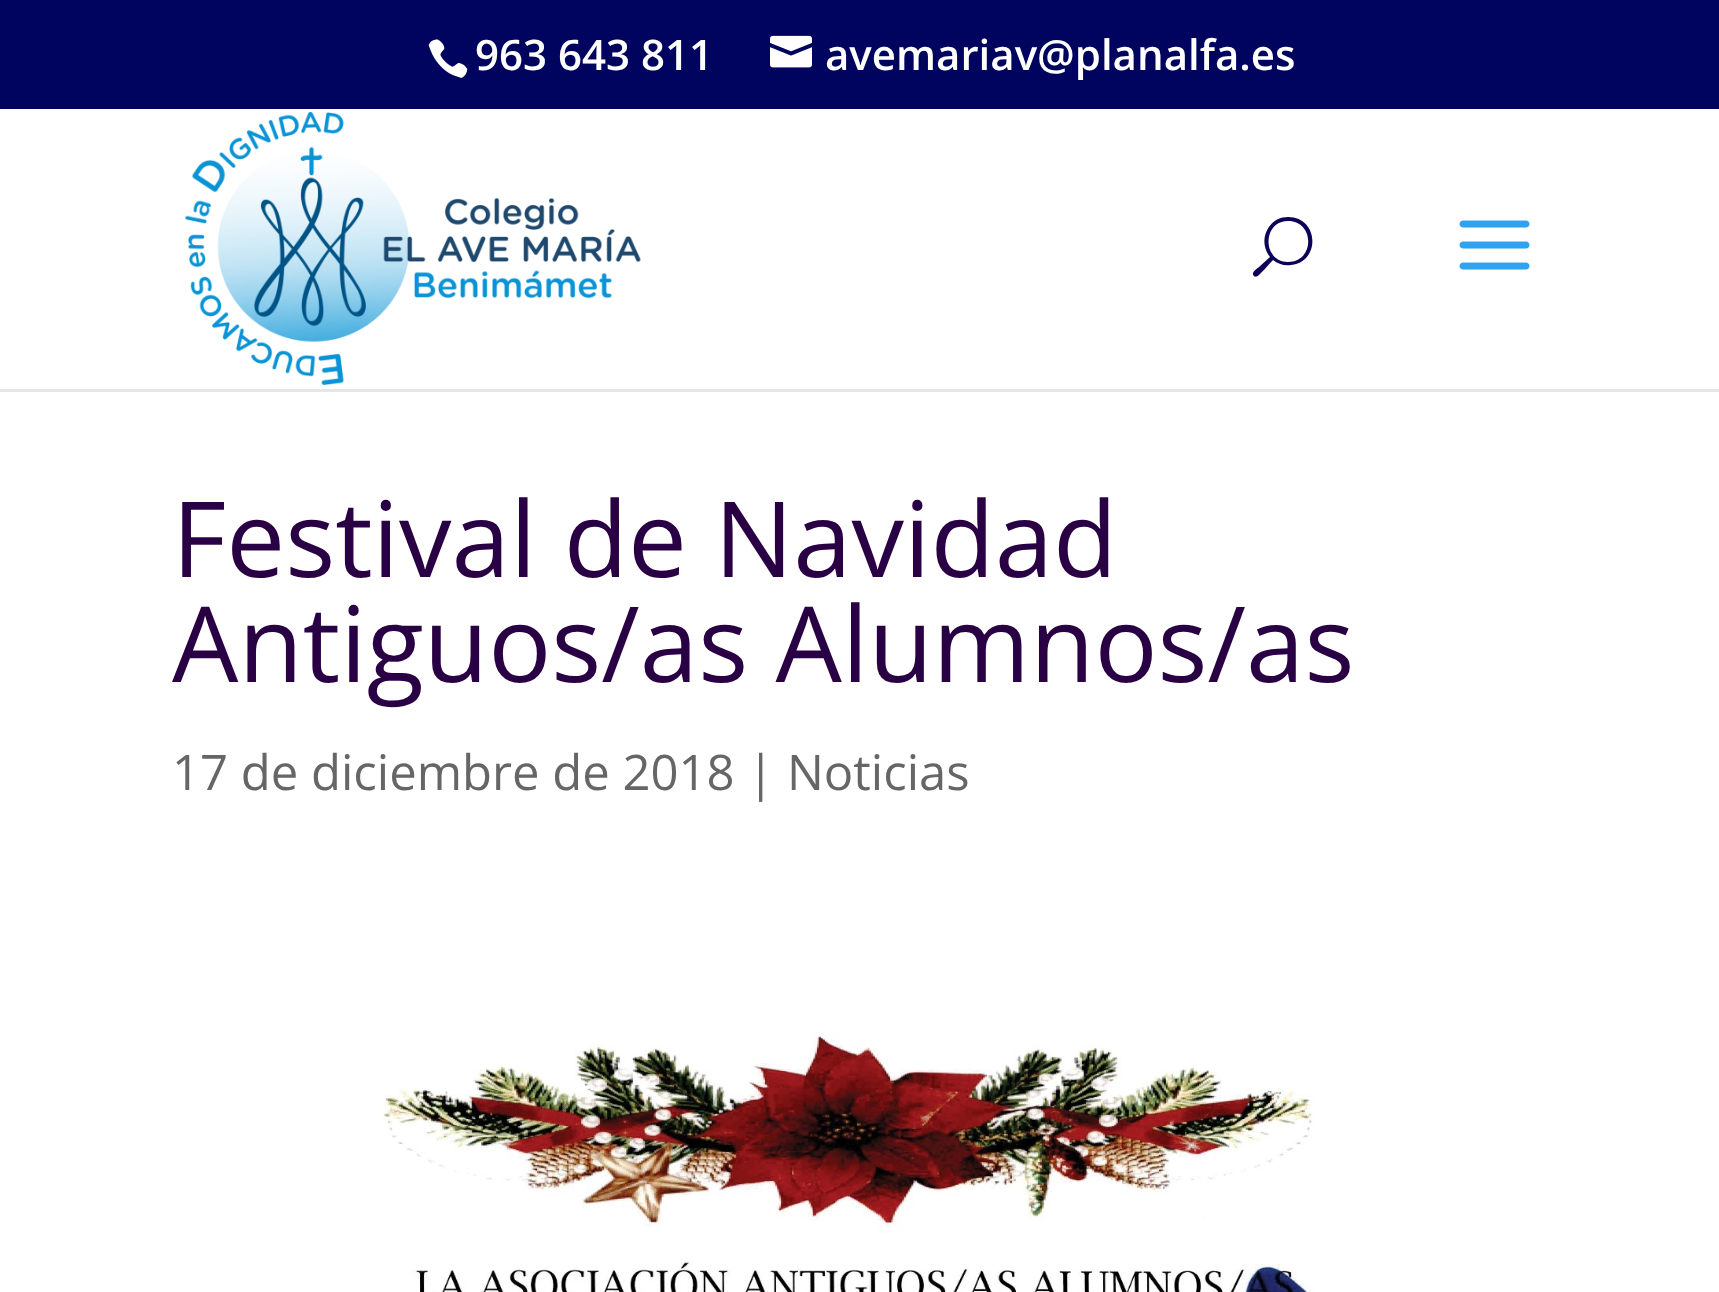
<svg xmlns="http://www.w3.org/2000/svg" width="1719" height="1292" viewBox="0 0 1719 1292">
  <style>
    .t1 { font: 600 42px Open Sans; fill: #fff; }
    .t2 { font: 105px Open Sans; fill: #2a0044; }
    .t3 { font: 49px Open Sans; fill: #666; }
  </style>
  <rect width="100%" height="100%" fill="#fff"/>
  <rect x="0" y="0" width="1719" height="109" fill="#00045e"/>
  <image x="428" y="39" width="40" height="39" href="images/1.png"/>
  <text x="475" y="70" class="t1">963 643 811</text>
  <image x="770" y="35" width="42" height="33" href="images/2.png"/>
  <text x="825" y="70" class="t1">avemariav@planalfa.es</text>
  <rect x="0" y="389" width="1719" height="3" fill="#e6e6e6"/>
  <image x="185" y="112" width="456" height="273" href="images/3.png"/>
  <path d="M1288 217C1268 217 1257 241 1270 257L1259 267C1258 268 1250 273 1254 276C1257 279 1261 272 1263 271L1273 260C1278 264 1284 266 1291 265C1321 262 1319 217 1288 217ZM1288 262C1262 262 1262 221 1288 221C1315 221 1315 262 1288 262Z" fill="#0d0059"/>
  <image x="1459" y="220" width="71" height="50" href="images/4.png"/>
  <text x="172" y="577" class="t2">Festival de Navidad</text>
  <text x="172" y="682" class="t2">Antiguos/as Alumnos/as</text>
  <text x="172" y="790" class="t3">17 de diciembre de 2018 | Noticias</text>
  <image x="381" y="1032" width="934" height="260" href="images/5.png"/>
</svg>
